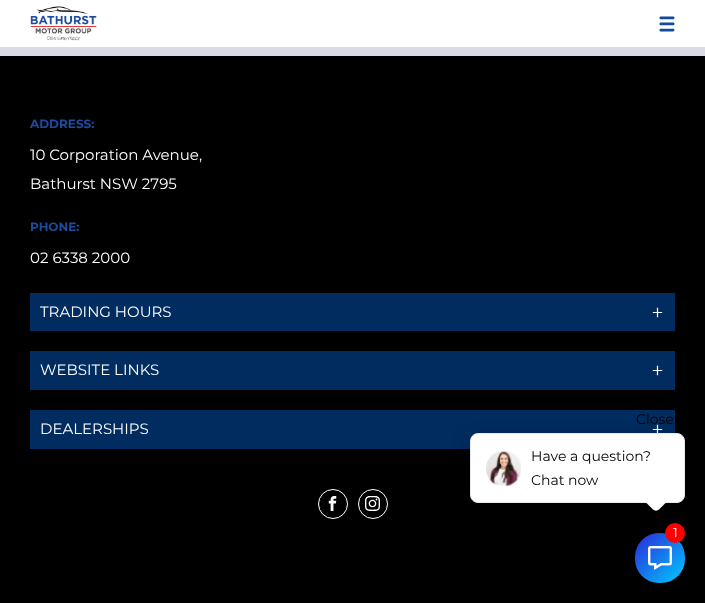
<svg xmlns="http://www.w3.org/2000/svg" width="705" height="603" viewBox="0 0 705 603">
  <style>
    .t1 { font: bold 12px Montserrat; fill: #1d4b9f; }
    .t2 { font: 100 15px Montserrat; fill: #fff; }
    .t3 { font: 100 14px Montserrat; fill: #000; }
    .t4 { font: 100 13px Montserrat; fill: #fff; }
  </style>
  <defs>
    <linearGradient id="g1" gradientUnits="userSpaceOnUse" x1="635" y1="533" x2="685" y2="583"><stop offset="0" stop-color="#2a27da"/><stop offset="1" stop-color="#0cf"/></linearGradient>
  </defs>
  <rect width="100%" height="100%" fill="#d9dce4"/>
  <rect x="0" y="0" width="705" height="47" fill="#fff"/>
  <image x="30" y="6" width="67" height="35" href="images/1.png"/>
  <image x="659" y="16" width="16" height="16" href="images/2.png"/>
  <rect x="0" y="56" width="705" height="547" fill="#000"/>
  <text x="30" y="128" class="t1">ADDRESS:</text>
  <text x="30" y="160" class="t2">10 Corporation Avenue,</text>
  <text x="30" y="189" class="t2">Bathurst NSW 2795</text>
  <text x="30" y="231" class="t1">PHONE:</text>
  <text x="30" y="263" class="t2">02 6338 2000</text>
  <rect x="30" y="293" width="645" height="38" fill="#002c5f"/>
  <text x="40" y="317" class="t2">TRADING HOURS</text>
  <image x="652" y="307" width="11" height="11" href="images/3.png"/>
  <rect x="30" y="351" width="645" height="39" fill="#002c5f"/>
  <text x="40" y="375" class="t2">WEBSITE LINKS</text>
  <image x="652" y="365" width="11" height="11" href="images/3.png"/>
  <rect x="30" y="410" width="645" height="39" fill="#002c5f"/>
  <text x="40" y="434" class="t2">DEALERSHIPS</text>
  <image x="652" y="424" width="11" height="9" href="images/4.png"/>
  <circle cx="333" cy="504" r="14.5" fill="none" stroke="#fff"/>
  <image x="328" y="496" width="9" height="15" href="images/5.png"/>
  <circle cx="373" cy="504" r="14.5" fill="none" stroke="#fff"/>
  <image x="365" y="496" width="15" height="15" href="images/6.png"/>
  <rect x="635" y="533" width="50" height="50" rx="24" fill="url(#g1)"/>
  <rect x="470" y="441" width="215" height="70" rx="8" fill="#0000003d" filter="blur(10px)"/>
  <rect x="470.5" y="433.5" width="214" height="69" rx="7.5" fill="#fff" stroke="#e8e9eb"/>
  <text x="636" y="424" class="t3">Close</text>
  <image x="486" y="451" width="35" height="35" href="images/7.png"/>
  <text x="531" y="461" class="t3">Have a question?</text>
  <text x="531" y="485" class="t3">Chat now</text>
  <path d="M659 486.5L667.5 495C669 496.5 669 499.5 667.5 501L659 509.5C657.5 511 654.5 511 653 509.5L644.5 501C643 499.5 643 496.5 644.5 495L653 486.5C654.5 485 657.5 485 659 486.5Z" fill="#fff"/>
  <circle cx="675" cy="533" r="10" fill="#f00"/>
  <text x="673" y="537" class="t4">1</text>
  <image x="648" y="546" width="24" height="24" href="images/8.png"/>
</svg>
